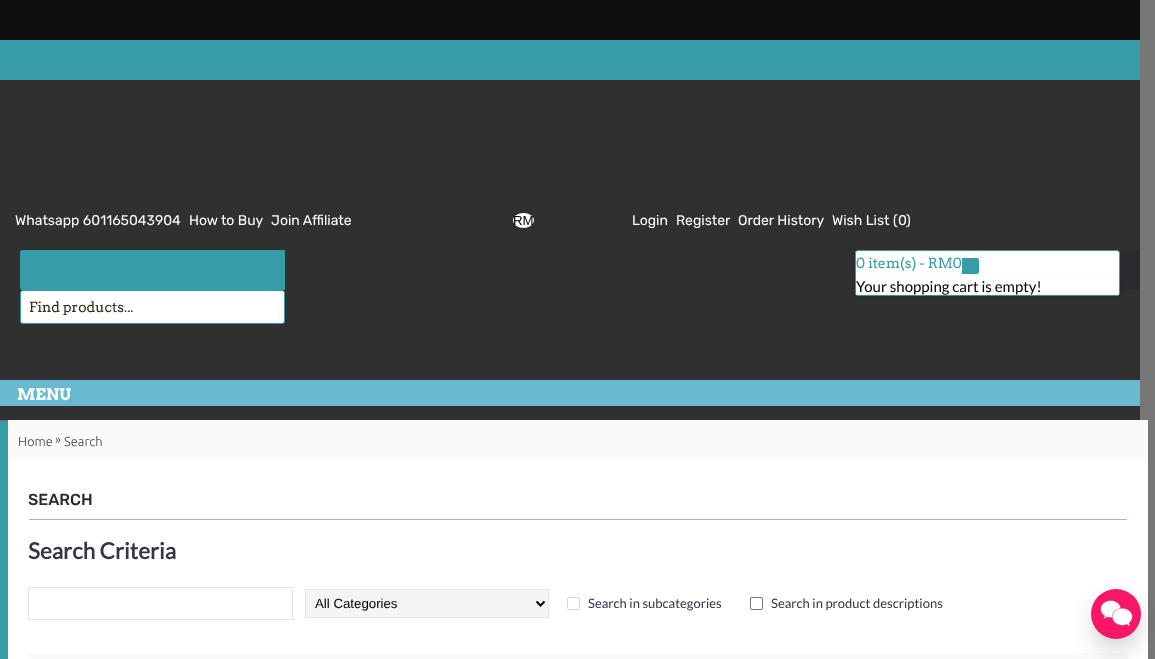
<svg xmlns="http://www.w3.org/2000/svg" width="1155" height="659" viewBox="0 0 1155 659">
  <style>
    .t1 { font: 14px Rubik; fill: #fff; }
    .t2 { font: 13.25px Liberation Sans; fill: #000; }
    .t3 { font: 14px Arvo; fill: #369ca8; }
    .t4 { font: 15px Lato; fill: #000; }
    .t5 { font: 14px Arvo; fill: #37291e; }
    .t6 { font: bold 16px Arvo; fill: #fff; }
    .t7 { font: 300 13px Ubuntu; fill: #444349; }
    .t8 { font: 500 16px Rubik; fill: #2a2b2e; }
    .t9 { font: bold 22.5px Lato; fill: #333745; }
    .t10 { font: 13px Lato; fill: #333745; }
  </style>
  <defs>
    <clipPath id="clip1"><rect x="29" y="299" width="247" height="16"/></clipPath>
  </defs>
  <rect width="100%" height="100%" fill="#777"/>
  <rect x="0" y="80" width="1140" height="340" fill="#303030"/>
  <rect x="0" y="0" width="1140" height="40" fill="#0e0e0e"/>
  <rect x="0" y="40" width="1140" height="40" fill="#369ca8"/>
  <text x="15" y="225" class="t1">Whatsapp 601165043904</text>
  <text x="189" y="225" class="t1">How to Buy</text>
  <text x="271" y="225" class="t1">Join Affiliate</text>
  <ellipse cx="523.5" cy="220.5" rx="10.5" ry="7.5" fill="#fff"/>
  <text x="513" y="225" class="t2">RM</text>
  <text x="632" y="225" class="t1">Login</text>
  <text x="676" y="225" class="t1">Register</text>
  <text x="738" y="225" class="t1">Order History</text>
  <text x="832" y="225" class="t1">Wish List (</text>
  <text x="898" y="225" class="t1">0</text>
  <text x="906" y="225" class="t1">)</text>
  <rect x="855" y="250" width="285" height="40" fill="#2a2b2e"/>
  <rect x="855.5" y="250.5" width="264" height="45" rx="2.5" fill="#fff" stroke="#369ca8"/>
  <rect x="856" y="279" width="263" height="18" rx="2" fill="#0000001a" filter="blur(2.5px)"/>
  <text x="856" y="268" class="t3">0 item(s) - RM0</text>
  <path d="M962 258H977C978 258 979 259 979 260V272C979 273 978 274 977 274H962Z" fill="#369ca8"/>
  <rect x="856" y="277" width="263" height="18" rx="2" fill="#fff"/>
  <text x="856" y="292" class="t4">Your shopping cart is empty!</text>
  <path d="M22 250H285V290H22C21 290 20 289 20 288V252C20 251 21 250 22 250Z" fill="#369ca8"/>
  <rect x="20.5" y="290.5" width="264" height="33" rx="2.5" fill="#fff" stroke="#369ca8"/>
  <g clip-path="url(#clip1)">
    <text x="29" y="312" class="t5">Find products...</text>
  </g>
  <rect x="0" y="380" width="1140" height="26" fill="#69b9cf"/>
  <text x="17" y="400" class="t6">MENU</text>
  <rect x="0" y="421" width="8" height="238" fill="#369ca8"/>
  <rect x="8" y="457" width="1140" height="202" fill="#fff"/>
  <path d="M8 420H1148V457C1148 458.5 1146.5 460 1145 460H11C9.5 460 8 458.5 8 457Z" fill="#fafafa"/>
  <text x="18" y="446" class="t7">Home</text>
  <text x="55" y="444" class="t7">»</text>
  <text x="64" y="446" class="t7">Search</text>
  <rect x="29" y="519" width="1098" height="1" fill="#a9b8c0"/>
  <text x="28" y="505" class="t8">SEARCH</text>
  <text x="28" y="559" class="t9">Search Criteria</text>
  <rect x="28.5" y="587.5" width="264" height="32" fill="none" stroke="#e4e4e4"/>
  <rect x="305.5" y="589.5" width="243" height="28" fill="#f4f4f4" stroke="#e4e4e4"/>
  <path d="M536.5 601.5L540.5 605.5L544.5 601.5" fill="none" stroke="#000" stroke-width="2"/>
  <text x="315" y="608" class="t2">All Categories</text>
  <rect x="567.5" y="597.5" width="12" height="12" rx="1.5" fill="none" stroke="#d6d6d6"/>
  <text x="588" y="608" class="t10">Search in subcategories</text>
  <rect x="750.5" y="597.5" width="12" height="12" rx="1.5" fill="none" stroke="#767676"/>
  <text x="771" y="608" class="t10">Search in product descriptions</text>
  <rect x="28" y="653" width="1100" height="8" rx="2" fill="#fafafa"/>
  <rect x="1101" y="614" width="30" height="30" rx="15" fill="#0000004d" filter="blur(15px)"/>
  <rect x="1091" y="594" width="50" height="50" rx="25" fill="#0000000d" filter="blur(10px)"/>
  <circle cx="1116" cy="614" r="25" fill="#f71668"/>
  <image x="1100" y="600" width="33" height="26" href="images/1.png"/>
</svg>
